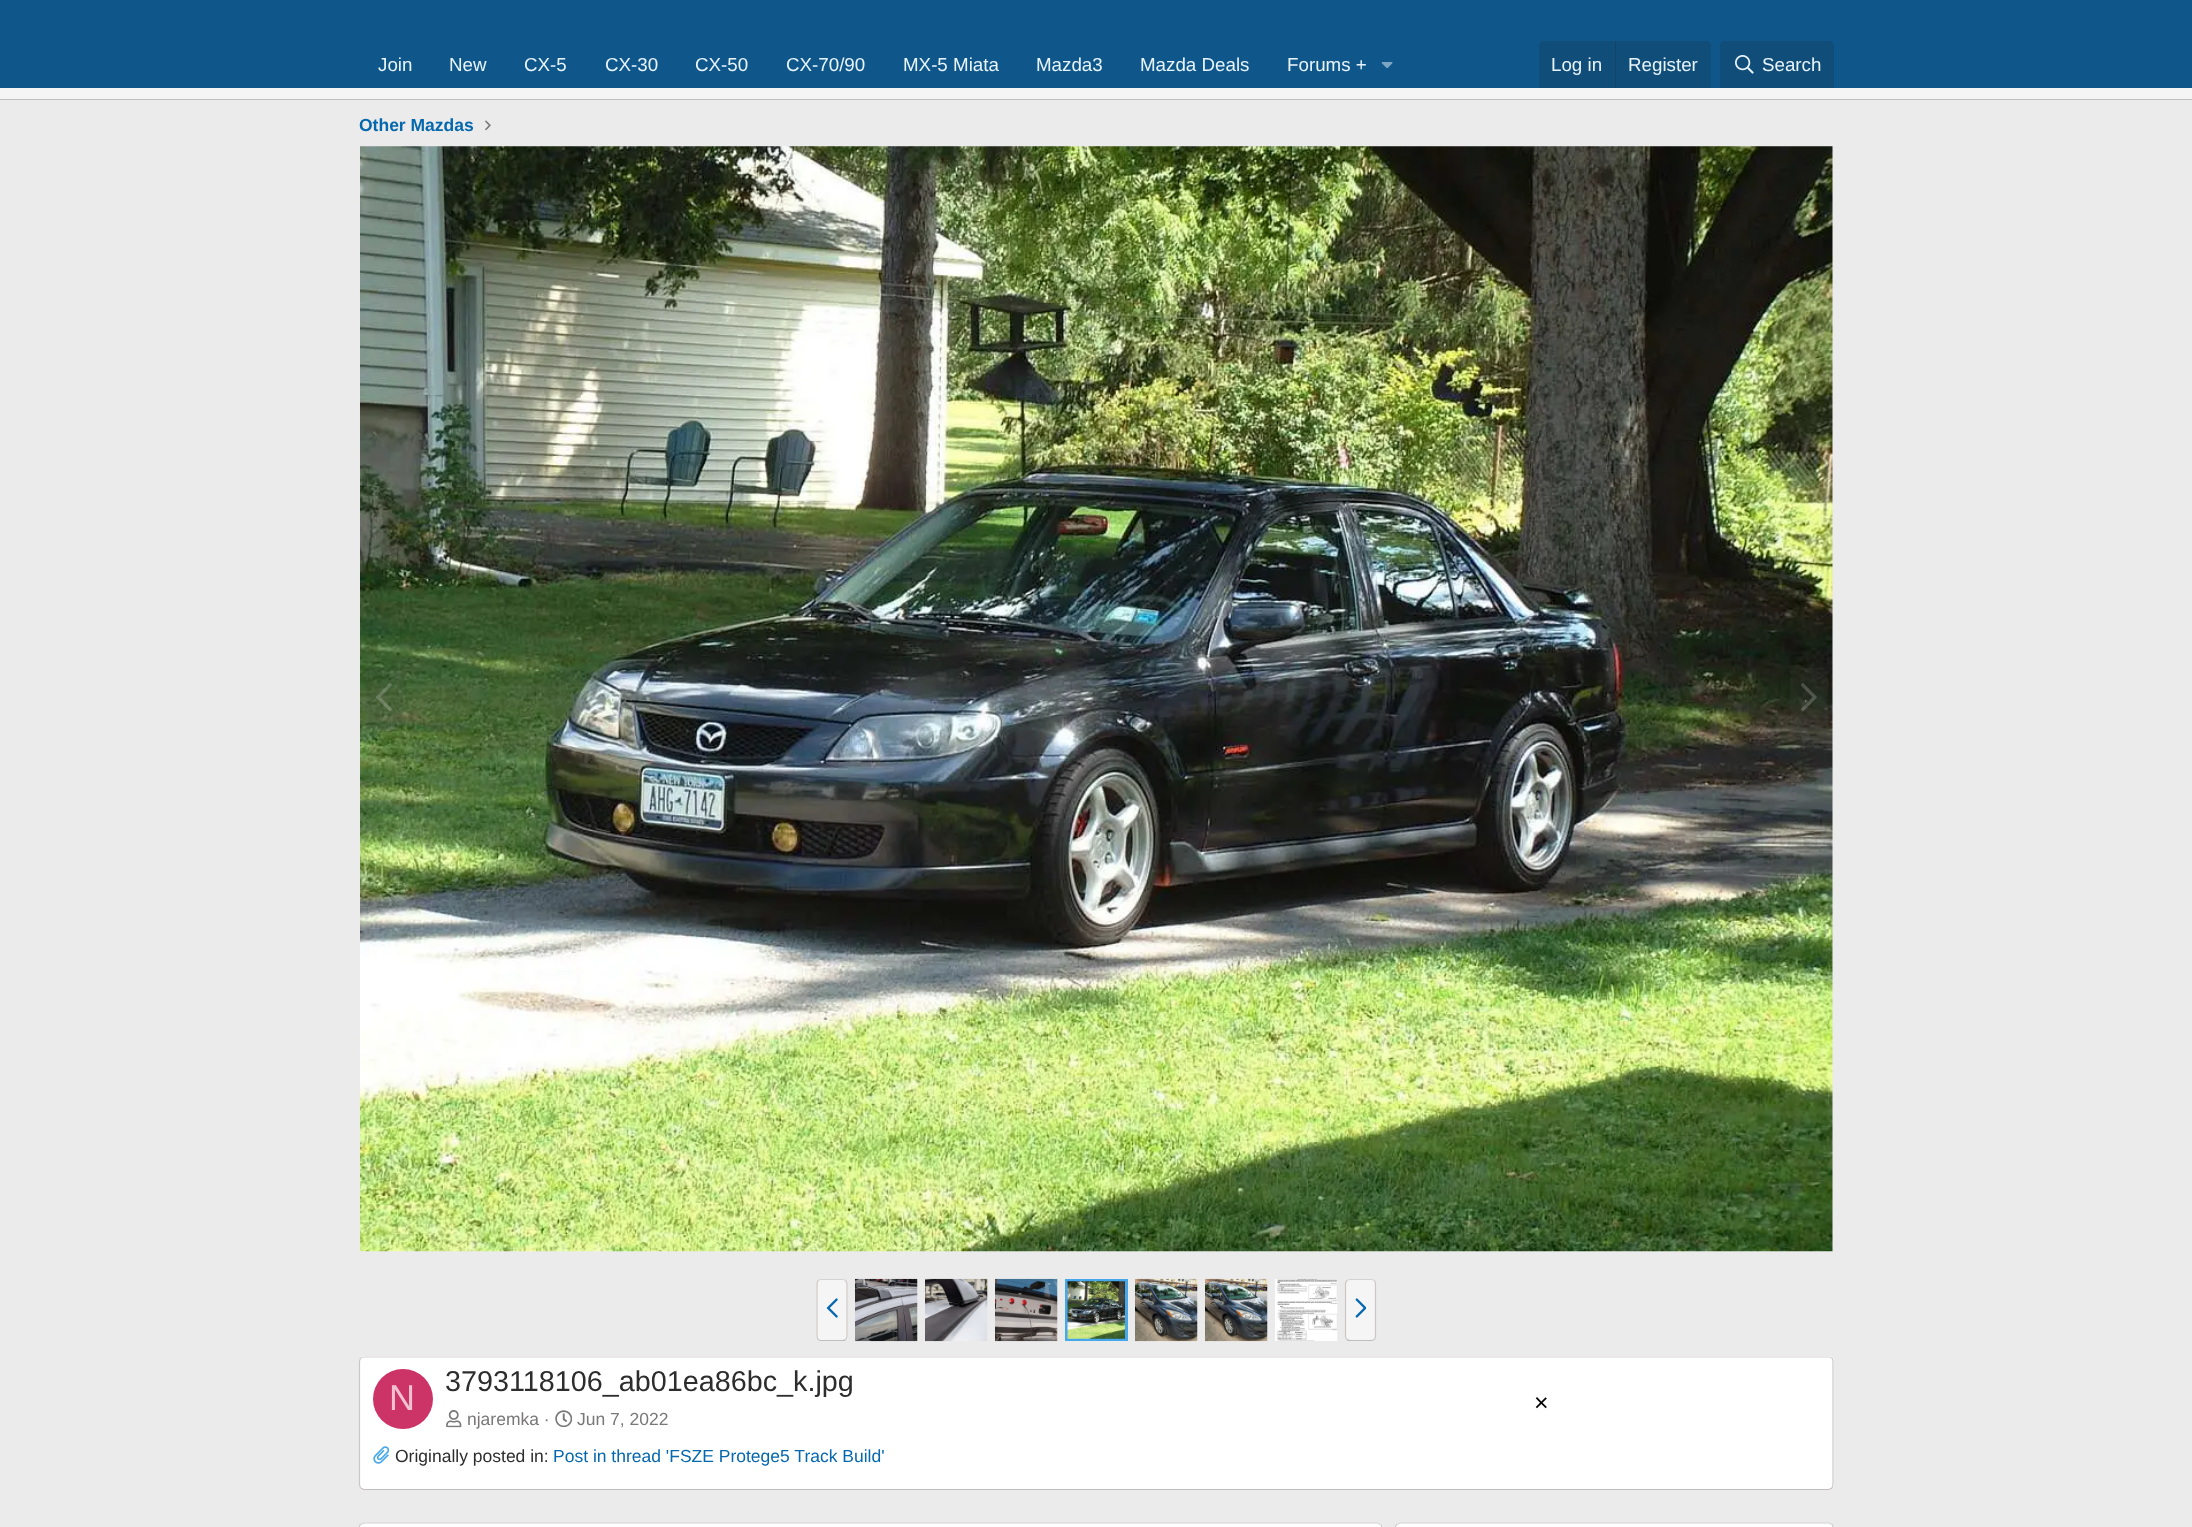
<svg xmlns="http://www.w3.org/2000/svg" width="2192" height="1527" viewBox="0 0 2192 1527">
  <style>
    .t1 { font: 18.75px Liberation Sans; fill: #e8f4fc; }
    .t2 { font: bold 17.5px Liberation Sans; fill: #0567ad; }
    .t3 { font: 36px Liberation Sans; fill: #f0c2d1; }
    .t4 { font: 28.75px Liberation Sans; fill: #2e2d2d; }
    .t5 { font: 17.5px Liberation Sans; fill: #797777; }
    .t6 { font: 17.5px Liberation Sans; fill: #2e2d2d; }
    .t7 { font: 17.5px Liberation Sans; fill: #0567ad; }
    .t8 { font: 25px Liberation Sans; fill: #000; }
  </style>
  <rect width="100%" height="100%" fill="#ebebeb"/>
  <rect x="0" y="0" width="2192" height="88" fill="#0f578a"/>
  <text x="378" y="71" class="t1">Join</text>
  <text x="449" y="71" class="t1">New</text>
  <text x="524" y="71" class="t1">CX-5</text>
  <text x="605" y="71" class="t1">CX-30</text>
  <text x="695" y="71" class="t1">CX-50</text>
  <text x="786" y="71" class="t1">CX-70/90</text>
  <text x="903" y="71" class="t1">MX-5 Miata</text>
  <text x="1036" y="71" class="t1">Mazda3</text>
  <text x="1140" y="71" class="t1">Mazda Deals</text>
  <text x="1287" y="71" class="t1">Forums +</text>
  <image x="1381" y="62" width="12" height="7" href="images/1.png"/>
  <path d="M1544 41H1706C1709 41 1711 43 1711 46V88H1539V46C1539 43 1541 41 1544 41Z" fill="#104d78"/>
  <text x="1551" y="71" class="t1">Log in</text>
  <rect x="1615" y="41" width="1" height="47" fill="#114469"/>
  <text x="1628" y="71" class="t1">Register</text>
  <path d="M1725 41H1829C1832 41 1834 43 1834 46V88H1720V46C1720 43 1722 41 1725 41Z" fill="#104d78"/>
  <image x="1735" y="55" width="19" height="19" href="images/2.png"/>
  <text x="1762" y="71" class="t1">Search</text>
  <rect x="0" y="88" width="2192" height="11" fill="#f5f5f5"/>
  <rect x="0" y="99" width="2192" height="1" fill="#c2bdbd"/>
  <text x="359" y="131" class="t2">Other Mazdas</text>
  <image x="485" y="120" width="6" height="11" href="images/3.png"/>
  <image x="360" y="146" width="1473" height="1106" href="images/4.png"/>
  <rect x="365" y="668" width="38" height="62" rx="5" fill="#4f4f4f24"/>
  <image x="376" y="683" width="16" height="29" href="images/5.png"/>
  <rect x="1790" y="668" width="38" height="62" rx="5" fill="#4f4f4f24"/>
  <image x="1801" y="683" width="16" height="29" href="images/6.png"/>
  <rect x="816" y="1279" width="32" height="62" rx="5" fill="#f5f5f5"/>
  <path d="M818 1280.5C819 1280 820 1279.5 821 1279.5H842.5C843.5 1279.5 845 1280 845.5 1280.5" fill="none" stroke="#d5d2d2" stroke-width="1.2"/>
  <path d="M845.5 1280.5C846.5 1281.5 847 1282.5 847 1284V1336C847 1337.5 846.5 1338.5 845.5 1339.5" fill="none" stroke="#ccc7c7" stroke-width="1.2"/>
  <path d="M845.5 1339.5C845 1340 843.5 1340.5 842.5 1340.5H821C820 1340.5 819 1340 818 1339.5" fill="none" stroke="#c2bdbd" stroke-width="1.2"/>
  <path d="M818 1339.5C817.5 1338.5 817 1337.5 817 1336V1284C817 1282.5 817.5 1281.5 818 1280.5" fill="none" stroke="#ccc7c7" stroke-width="1.2"/>
  <image x="826" y="1298" width="12" height="20" href="images/7.png"/>
  <image x="855" y="1278" width="63" height="64" href="images/8.png"/>
  <image x="925" y="1278" width="63" height="64" href="images/9.png"/>
  <image x="995" y="1278" width="63" height="64" href="images/10.png"/>
  <rect x="1066.5" y="1280.5" width="60" height="59" fill="none" stroke="#47a7eb" stroke-width="3"/>
  <image x="1067" y="1281" width="58" height="58" href="images/11.png"/>
  <image x="1135" y="1278" width="63" height="64" href="images/12.png"/>
  <image x="1205" y="1278" width="63" height="64" href="images/12.png"/>
  <image x="1275" y="1279" width="63" height="62" href="images/13.png"/>
  <rect x="1345" y="1279" width="31" height="62" rx="5" fill="#f5f5f5"/>
  <path d="M1347 1280.5C1347.5 1280 1349 1279.5 1350 1279.5H1371C1372.5 1279.5 1373.5 1280 1374.5 1280.5" fill="none" stroke="#d5d2d2" stroke-width="1.2"/>
  <path d="M1374.5 1280.5C1375 1281.5 1375.5 1282.5 1375.5 1284V1336C1375.5 1337.5 1375 1338.5 1374.5 1339.5" fill="none" stroke="#ccc7c7" stroke-width="1.2"/>
  <path d="M1374.5 1339.5C1373.5 1340 1372.5 1340.5 1371 1340.5H1350C1349 1340.5 1347.5 1340 1347 1339.5" fill="none" stroke="#c2bdbd" stroke-width="1.2"/>
  <path d="M1347 1339.5C1346 1338.5 1345.5 1337.5 1345.5 1336V1284C1345.5 1282.5 1346 1281.5 1347 1280.5" fill="none" stroke="#ccc7c7" stroke-width="1.2"/>
  <image x="1355" y="1298" width="11" height="20" href="images/14.png"/>
  <rect x="359" y="1356" width="1475" height="134" rx="5" fill="#fff"/>
  <path d="M360.5 1358L364 1357H1829L1832 1358" fill="none" stroke="#d5d2d2" stroke-width="1.2"/>
  <path d="M1832 1358L1833 1361V1464.5V1485L1832 1488" fill="none" stroke="#ccc7c7" stroke-width="1.2"/>
  <path d="M1832 1488L1829 1489.5H364L360.5 1488" fill="none" stroke="#c2bdbd" stroke-width="1.2"/>
  <path d="M360.5 1488L359.5 1485V1361L360.5 1358" fill="none" stroke="#ccc7c7" stroke-width="1.2"/>
  <circle cx="403" cy="1399" r="30" fill="#c36"/>
  <text x="389" y="1410" class="t3">N</text>
  <text x="445" y="1391" class="t4">3793118106_ab01ea86bc_k.jpg</text>
  <image x="446" y="1410" width="16" height="18" href="images/15.png"/>
  <text x="467" y="1425" class="t5">njaremka ·</text>
  <image x="555" y="1410" width="18" height="18" href="images/16.png"/>
  <text x="577" y="1425" class="t5">Jun 7, 2022</text>
  <image x="373" y="1446" width="17" height="18" href="images/17.png"/>
  <text x="395" y="1462" class="t6">Originally posted in:</text>
  <text x="553" y="1462" class="t7">Post in thread 'FSZE Protege5 Track Build'</text>
  <rect x="359" y="1523" width="1024" height="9" rx="5" fill="#fff"/>
  <path d="M360.5 1524.5L364 1523H1377.5L1380.5 1524.5" fill="none" stroke="#d5d2d2" stroke-width="1.2"/>
  <path d="M1380.5 1524.5C1381.5 1525 1382 1526.5 1382 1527.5V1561C1382 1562.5 1381.5 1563.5 1380.5 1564.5" fill="none" stroke="#ccc7c7" stroke-width="1.2"/>
  <path d="M360.5 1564.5C360 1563.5 359.5 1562.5 359.5 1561V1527.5C359.5 1526.5 360 1525 360.5 1524.5" fill="none" stroke="#ccc7c7" stroke-width="1.2"/>
  <rect x="360" y="1524" width="1021" height="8" rx="5" fill="#fff"/>
  <rect x="1395" y="1523" width="439" height="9" rx="5" fill="#fff"/>
  <path d="M1397 1524.5L1400 1523H1829L1832 1524.5" fill="none" stroke="#d5d2d2" stroke-width="1.2"/>
  <path d="M1832 1524.5C1832.5 1525 1833 1526.5 1833 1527.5V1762.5C1833 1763.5 1832.5 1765 1832 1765.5" fill="none" stroke="#ccc7c7" stroke-width="1.2"/>
  <path d="M1397 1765.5C1396 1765 1395.5 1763.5 1395.5 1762.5V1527.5C1395.5 1526.5 1396 1525 1397 1524.5" fill="none" stroke="#ccc7c7" stroke-width="1.2"/>
  <text x="1534" y="1411" class="t8">×</text>
</svg>
